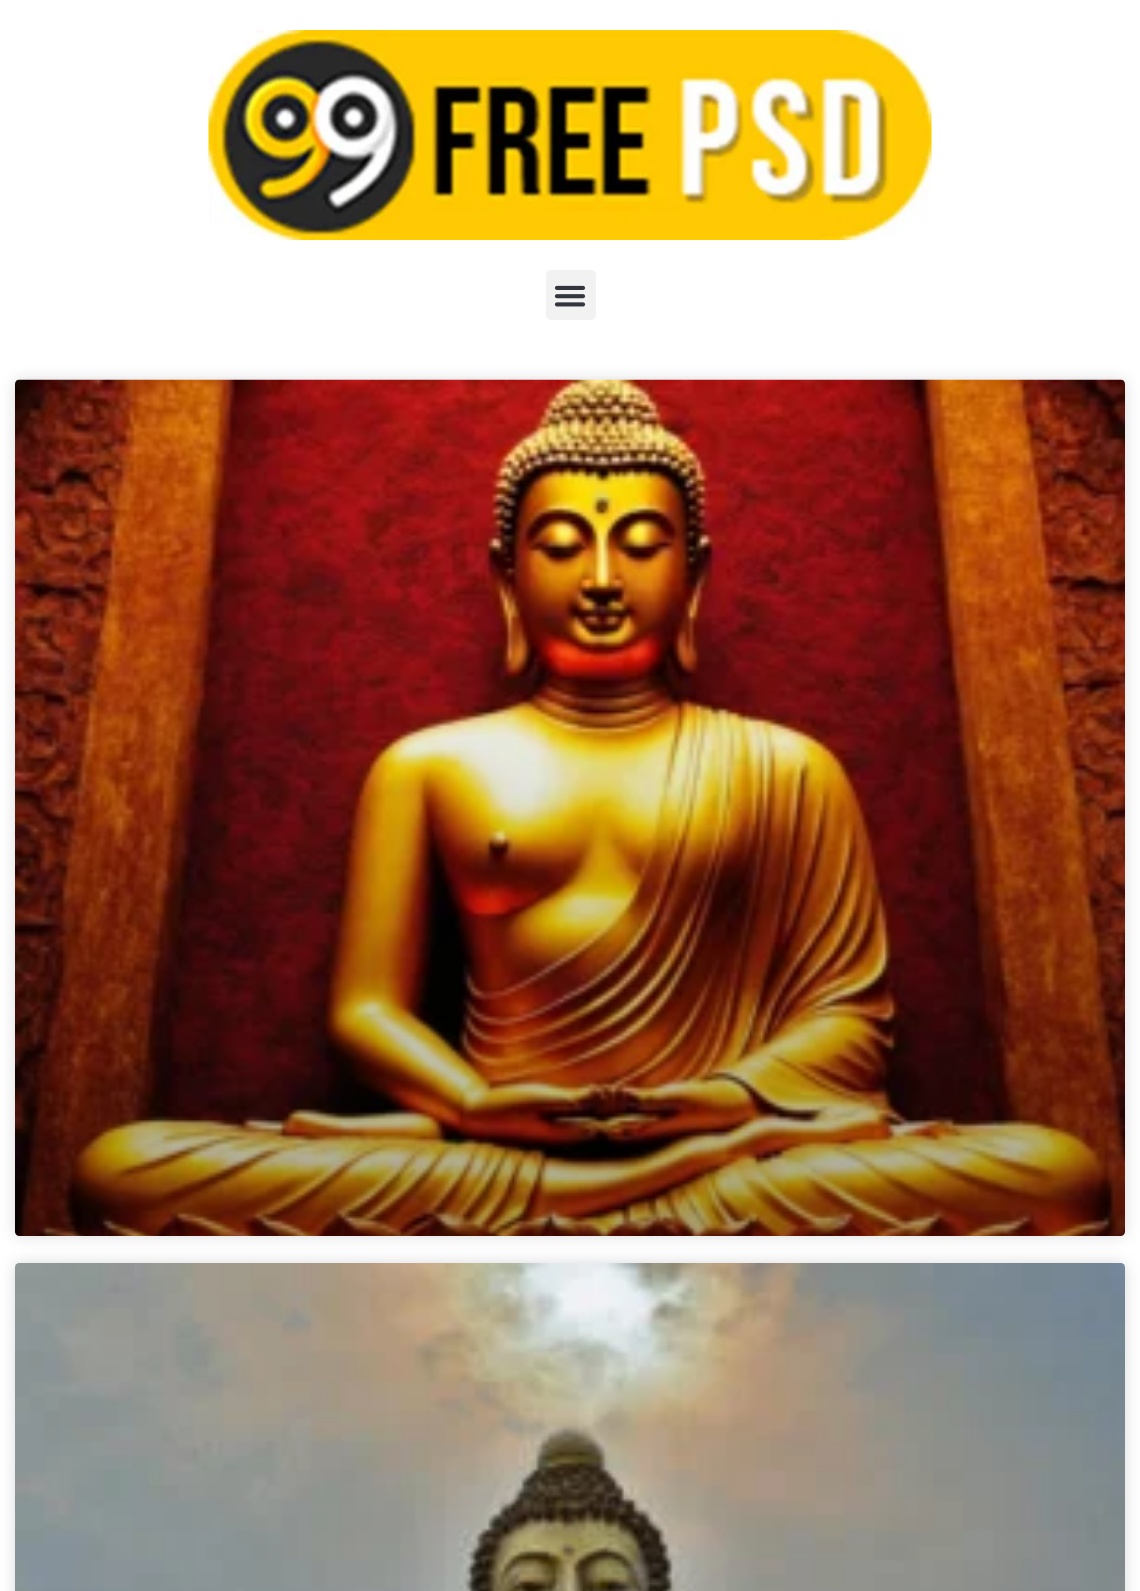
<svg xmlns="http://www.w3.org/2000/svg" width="1140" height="1591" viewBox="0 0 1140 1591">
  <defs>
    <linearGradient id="g1" gradientUnits="userSpaceOnUse" x1="570" y1="1244" x2="570" y2="380"><stop offset="0" stop-color="#000" stop-opacity="0.35"/><stop offset="0.75" stop-color="#000" stop-opacity="0"/></linearGradient>
  </defs>
  <rect width="100%" height="100%" fill="#fff"/>
  <image x="208" y="30" width="724" height="210" href="images/1.png"/>
  <rect x="546" y="270" width="50" height="50" rx="5" fill="#f2f2f2"/>
  <image x="554" y="285" width="32" height="22" href="images/2.png"/>
  <rect x="15" y="380" width="1110" height="856" rx="5" fill="#00000026" filter="blur(7.5px)"/>
  <image x="15" y="379" width="1110" height="857" href="images/3.png"/>
  <rect x="15" y="380" width="1110" height="856" rx="5" fill="url(#g1)"/>
  <rect x="15" y="1263" width="1110" height="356" rx="5" fill="#00000026" filter="blur(7.5px)"/>
  <image x="15" y="1263" width="1110" height="328" href="images/4.png"/>
</svg>
